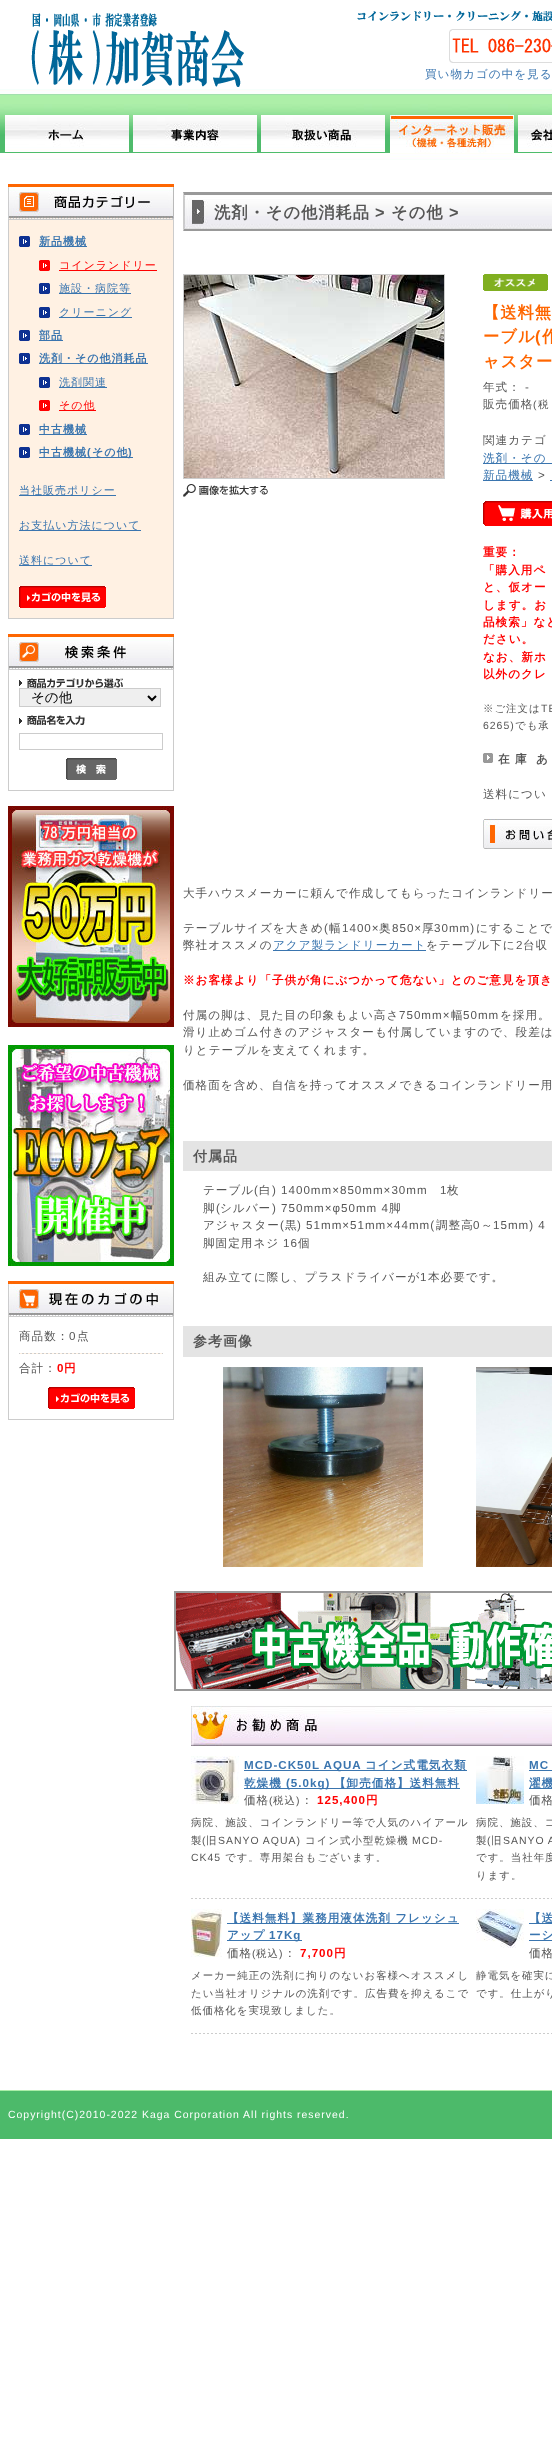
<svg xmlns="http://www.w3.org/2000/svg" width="552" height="2457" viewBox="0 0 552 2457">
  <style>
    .t1 { font: 500 11.6px WenQuanYi Zen Hei; letter-spacing: 1px; fill: #3a75af; }
    .t2 { font: bold 11px WenQuanYi Zen Hei; letter-spacing: 1px; fill: #3a75af; }
    .t3 { font: 500 11px WenQuanYi Zen Hei; letter-spacing: 1px; fill: #f00; }
    .t4 { font: 500 11px WenQuanYi Zen Hei; letter-spacing: 1px; fill: #3a75af; }
    .t5 { font: bold 11px Liberation Sans; letter-spacing: 1px; fill: #3a75af; }
    .t6 { font: 500 13.5px WenQuanYi Zen Hei; fill: #000; }
    .t7 { font: 500 11.6px WenQuanYi Zen Hei; letter-spacing: 1px; fill: #555; }
    .t8 { font: 11.6px Liberation Sans; letter-spacing: 1px; fill: #555; }
    .t9 { font: bold 11.6px Liberation Sans; letter-spacing: 1px; fill: #f00; }
    .t10 { font: bold 11.6px WenQuanYi Zen Hei; letter-spacing: 1px; fill: #f00; }
    .t11 { font: bold 16.25px WenQuanYi Zen Hei; letter-spacing: 1px; fill: #555; }
    .t12 { font: bold 16.25px Liberation Sans; letter-spacing: 1px; fill: #555; }
    .t13 { font: bold 16.25px WenQuanYi Zen Hei; letter-spacing: 1px; fill: #f60; }
    .t14 { font: bold 16.25px Liberation Sans; letter-spacing: 1px; fill: #f60; }
    .t15 { font: 10.45px Liberation Sans; letter-spacing: 1px; fill: #555; }
    .t16 { font: 500 10.45px WenQuanYi Zen Hei; letter-spacing: 1px; fill: #555; }
    .t17 { font: bold 11.6px WenQuanYi Zen Hei; letter-spacing: 1px; fill: #555; }
    .t18 { font: bold 14px WenQuanYi Zen Hei; letter-spacing: 1px; fill: #555; }
    .t19 { font: bold 11.6px Liberation Sans; letter-spacing: 1px; fill: #3a75af; }
    .t20 { font: bold 11.6px WenQuanYi Zen Hei; letter-spacing: 1px; fill: #3a75af; }
    .t21 { font: 10.45px Liberation Sans; letter-spacing: 1px; fill: #fff; }
  </style>
  <rect width="100%" height="100%" fill="#fff"/>
  <image x="0" y="89" width="552" height="71" href="images/1.png"/>
  <image x="357" y="11" width="195" height="52" href="images/2.png"/>
  <image x="31" y="13" width="213" height="74" href="images/3.png"/>
  <text x="425" y="78" class="t1">買い物カゴの中を見る</text>
  <image x="5" y="115" width="124" height="38" href="images/4.png"/>
  <image x="133" y="115" width="124" height="38" href="images/5.png"/>
  <image x="261" y="115" width="124" height="38" href="images/6.png"/>
  <image x="390" y="115" width="124" height="38" href="images/7.png"/>
  <image x="518" y="115" width="34" height="38" href="images/8.png"/>
  <image x="8" y="184" width="166" height="35" href="images/9.png"/>
  <rect x="8.5" y="219.5" width="165" height="399" fill="#fff1e3" stroke="#ccc"/>
  <image x="19" y="236" width="11" height="11" href="images/10.png"/>
  <rect x="39" y="246" width="48" height="1" fill="#3a75af"/>
  <text x="39" y="245" class="t2">新品機械</text>
  <image x="39" y="260" width="11" height="11" href="images/11.png"/>
  <rect x="59" y="270" width="98" height="1" fill="#f00"/>
  <text x="59" y="269" class="t3">コインランドリー</text>
  <image x="39" y="283" width="11" height="11" href="images/10.png"/>
  <rect x="59" y="293" width="72" height="1" fill="#3a75af"/>
  <text x="59" y="292" class="t4">施設・病院等</text>
  <image x="39" y="307" width="11" height="11" href="images/10.png"/>
  <rect x="59" y="317" width="73" height="1" fill="#3a75af"/>
  <text x="59" y="316" class="t4">クリーニング</text>
  <image x="19" y="330" width="11" height="11" href="images/10.png"/>
  <rect x="39" y="340" width="24" height="1" fill="#3a75af"/>
  <text x="39" y="339" class="t2">部品</text>
  <image x="19" y="353" width="11" height="11" href="images/10.png"/>
  <rect x="39" y="363" width="109" height="1" fill="#3a75af"/>
  <text x="39" y="362" class="t2">洗剤・その他消耗品</text>
  <image x="39" y="377" width="11" height="11" href="images/10.png"/>
  <rect x="59" y="387" width="48" height="1" fill="#3a75af"/>
  <text x="59" y="386" class="t4">洗剤関連</text>
  <image x="39" y="400" width="11" height="11" href="images/11.png"/>
  <rect x="59" y="410" width="37" height="1" fill="#f00"/>
  <text x="59" y="409" class="t3">その他</text>
  <image x="19" y="424" width="11" height="11" href="images/10.png"/>
  <rect x="39" y="434" width="48" height="1" fill="#3a75af"/>
  <text x="39" y="433" class="t2">中古機械</text>
  <image x="19" y="447" width="11" height="11" href="images/10.png"/>
  <rect x="39" y="457" width="94" height="1" fill="#3a75af"/>
  <text x="39" y="456" class="t2">中古機械</text>
  <text x="87" y="456" class="t5">(</text>
  <text x="92" y="456" class="t2">その他</text>
  <text x="128" y="456" class="t5">)</text>
  <rect x="19" y="495" width="97" height="1" fill="#3a75af"/>
  <text x="19" y="494" class="t4">当社販売ポリシー</text>
  <rect x="19" y="530" width="122" height="1" fill="#3a75af"/>
  <text x="19" y="529" class="t4">お支払い方法について</text>
  <rect x="19" y="565" width="73" height="1" fill="#3a75af"/>
  <text x="19" y="564" class="t4">送料について</text>
  <image x="19" y="586" width="87" height="22" href="images/12.png"/>
  <image x="8" y="634" width="166" height="35" href="images/13.png"/>
  <rect x="8.5" y="669.5" width="165" height="121" fill="none" stroke="#ccc"/>
  <image x="19" y="678" width="104" height="10" href="images/14.png"/>
  <rect x="19.5" y="688.5" width="141" height="18" fill="#efefef" stroke="#ccc"/>
  <path d="M148 696L152 700L156 696" fill="none" stroke="#000" stroke-width="2"/>
  <text x="31" y="702" class="t6">その他</text>
  <image x="19" y="715" width="66" height="10" href="images/15.png"/>
  <rect x="19.5" y="733.5" width="143" height="16" fill="none" stroke="#ccc"/>
  <image x="66" y="758" width="51" height="22" href="images/16.png"/>
  <image x="8" y="806" width="166" height="221" href="images/17.png"/>
  <image x="8" y="1045" width="166" height="221" href="images/18.png"/>
  <image x="8" y="1281" width="166" height="35" href="images/19.png"/>
  <rect x="8.5" y="1316.5" width="165" height="103" fill="none" stroke="#ccc"/>
  <image x="19" y="1353" width="144" height="1" href="images/20.png"/>
  <text x="19" y="1340" class="t7">商品数：</text>
  <text x="69" y="1340" class="t8">0</text>
  <text x="77" y="1340" class="t7">点</text>
  <text x="19" y="1372" class="t7">合計：</text>
  <text x="57" y="1372" class="t9">0</text>
  <text x="64" y="1372" class="t10">円</text>
  <image x="48" y="1387" width="87" height="22" href="images/12.png"/>
  <image x="184" y="195" width="368" height="34" href="images/21.png"/>
  <path d="M183 192H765L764 195H184Z" fill="#999"/>
  <path d="M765 231H183L184 229H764Z" fill="#999"/>
  <path d="M183 231V192L184 195V229Z" fill="#ccc"/>
  <text x="214" y="218" class="t11">洗剤・その他消耗品</text>
  <text x="375" y="218" class="t12">&gt;</text>
  <text x="391" y="218" class="t11">その他</text>
  <text x="449" y="218" class="t12">&gt;</text>
  <rect x="183.5" y="274.5" width="261" height="204" fill="none" stroke="#ccc"/>
  <image x="184" y="275" width="260" height="203" href="images/22.png"/>
  <image x="183" y="484" width="85" height="13" href="images/23.png"/>
  <image x="483" y="274" width="65" height="17" href="images/24.png"/>
  <text x="483" y="318" class="t13">【送料無</text>
  <text x="483" y="342" class="t13">ーブル</text>
  <text x="535" y="342" class="t14">(</text>
  <text x="542" y="342" class="t13">作</text>
  <text x="483" y="367" class="t13">ャスター</text>
  <text x="483" y="391" class="t7">年式：</text>
  <text x="525" y="391" class="t8">-</text>
  <text x="483" y="408" class="t7">販売価格</text>
  <text x="533" y="408" class="t15">(</text>
  <text x="538" y="408" class="t16">税</text>
  <text x="483" y="444" class="t7">関連カテゴ</text>
  <rect x="483" y="463" width="69" height="1" fill="#3a75af"/>
  <text x="483" y="462" class="t1">洗剤・その</text>
  <rect x="483" y="480" width="50" height="1" fill="#3a75af"/>
  <text x="483" y="479" class="t1">新品機械</text>
  <text x="538" y="479" class="t8">&gt;</text>
  <rect x="550" y="480" width="2" height="1" fill="#3a75af"/>
  <image x="483" y="501" width="69" height="25" href="images/25.png"/>
  <text x="483" y="556" class="t10">重要：</text>
  <text x="483" y="574" class="t10">「購入用ペ</text>
  <text x="483" y="591" class="t10">と、仮オー</text>
  <text x="483" y="609" class="t10">します。お</text>
  <text x="483" y="626" class="t10">品検索」など</text>
  <text x="483" y="643" class="t10">ださい。</text>
  <text x="483" y="661" class="t10">なお、新ホ</text>
  <text x="483" y="678" class="t10">以外のクレ</text>
  <text x="483" y="712" class="t16">※ご注文は</text>
  <text x="541" y="712" class="t15">TE</text>
  <text x="483" y="729" class="t15">6265)</text>
  <text x="515" y="729" class="t16">でも承</text>
  <image x="483" y="753" width="10" height="10" href="images/26.png"/>
  <text x="498" y="763" class="t17">在 庫</text>
  <text x="536" y="763" class="t17">あ</text>
  <text x="483" y="798" class="t7">送料につい</text>
  <image x="483" y="819" width="69" height="30" href="images/27.png"/>
  <text x="183" y="897" class="t7">大手ハウスメーカーに頼んで作成してもらったコインランドリー</text>
  <text x="183" y="932" class="t7">テーブルサイズを大きめ</text>
  <text x="324" y="932" class="t8">(</text>
  <text x="329" y="932" class="t7">幅</text>
  <text x="342" y="932" class="t8">1400×</text>
  <text x="379" y="932" class="t7">奥</text>
  <text x="392" y="932" class="t8">850×</text>
  <text x="422" y="932" class="t7">厚</text>
  <text x="434" y="932" class="t8">30mm)</text>
  <text x="476" y="932" class="t7">にすることで</text>
  <text x="183" y="949" class="t7">弊社オススメの</text>
  <rect x="273" y="950" width="153" height="1" fill="#3a75af"/>
  <text x="273" y="949" class="t1">アクア製ランドリーカート</text>
  <text x="426" y="949" class="t7">をテーブル下に</text>
  <text x="516" y="949" class="t8">2</text>
  <text x="523" y="949" class="t7">台収</text>
  <text x="183" y="984" class="t10">※お客様より「子供が角にぶつかって危ない」とのご意見を頂き</text>
  <text x="183" y="1019" class="t7">付属の脚は、見た目の印象もよい高さ</text>
  <text x="399" y="1019" class="t8">750mm×</text>
  <text x="451" y="1019" class="t7">幅</text>
  <text x="463" y="1019" class="t8">50mm</text>
  <text x="500" y="1019" class="t7">を採用。</text>
  <text x="183" y="1036" class="t7">滑り止めゴム付きのアジャスターも付属していますので、段差は</text>
  <text x="183" y="1054" class="t7">りとテーブルを支えてくれます。</text>
  <text x="183" y="1089" class="t7">価格面を含め、自信を持ってオススメできるコインランドリー用</text>
  <rect x="183" y="1141" width="369" height="30" fill="#e4e4e4"/>
  <text x="193" y="1161" class="t18">付属品</text>
  <text x="203" y="1194" class="t7">テーブル</text>
  <text x="254" y="1194" class="t8">(</text>
  <text x="259" y="1194" class="t7">白</text>
  <text x="272" y="1194" class="t8">) 1400mm×850mm×30mm</text>
  <text x="440" y="1194" class="t8">1</text>
  <text x="447" y="1194" class="t7">枚</text>
  <text x="203" y="1212" class="t7">脚</text>
  <text x="216" y="1212" class="t8">(</text>
  <text x="220" y="1212" class="t7">シルバー</text>
  <text x="272" y="1212" class="t8">) 750mm×φ50mm 4</text>
  <text x="389" y="1212" class="t7">脚</text>
  <text x="203" y="1229" class="t7">アジャスター</text>
  <text x="280" y="1229" class="t8">(</text>
  <text x="285" y="1229" class="t7">黒</text>
  <text x="297" y="1229" class="t8">) 51mm×51mm×44mm(</text>
  <text x="436" y="1229" class="t7">調整高</text>
  <text x="473" y="1229" class="t8">0</text>
  <text x="481" y="1229" class="t7">～</text>
  <text x="493" y="1229" class="t8">15mm) 4</text>
  <text x="203" y="1247" class="t7">脚固定用ネジ</text>
  <text x="283" y="1247" class="t8">16</text>
  <text x="298" y="1247" class="t7">個</text>
  <text x="203" y="1281" class="t7">組み立てに際し、プラスドライバーが</text>
  <text x="420" y="1281" class="t8">1</text>
  <text x="428" y="1281" class="t7">本必要です。</text>
  <rect x="183" y="1326" width="369" height="31" fill="#e4e4e4"/>
  <text x="193" y="1346" class="t18">参考画像</text>
  <image x="223" y="1367" width="200" height="200" href="images/28.png"/>
  <image x="476" y="1367" width="76" height="200" href="images/29.png"/>
  <image x="174" y="1591" width="378" height="100" href="images/30.png"/>
  <image x="191" y="1706" width="361" height="40" href="images/31.png"/>
  <image x="191" y="1898" width="361" height="1" href="images/32.png"/>
  <image x="191" y="1756" width="48" height="48" href="images/33.png"/>
  <rect x="244" y="1770" width="223" height="1" fill="#3a75af"/>
  <text x="244" y="1769" class="t19">MCD-CK50L AQUA</text>
  <text x="365" y="1769" class="t20">コイン式電気衣類</text>
  <rect x="244" y="1788" width="216" height="1" fill="#3a75af"/>
  <text x="244" y="1787" class="t20">乾燥機</text>
  <text x="286" y="1787" class="t19">(5.0kg)</text>
  <text x="334" y="1787" class="t20">【卸売価格】送料無料</text>
  <text x="244" y="1804" class="t7">価格</text>
  <text x="269" y="1804" class="t15">(</text>
  <text x="273" y="1804" class="t16">税込</text>
  <text x="296" y="1804" class="t15">)</text>
  <text x="301" y="1804" class="t7">：</text>
  <text x="317" y="1804" class="t9">125,400</text>
  <text x="366" y="1804" class="t10">円</text>
  <text x="191" y="1826" class="t16">病院、施設、コインランドリー等で人気のハイアール</text>
  <text x="191" y="1844" class="t16">製</text>
  <text x="202" y="1844" class="t15">(</text>
  <text x="206" y="1844" class="t16">旧</text>
  <text x="218" y="1844" class="t15">SANYO AQUA)</text>
  <text x="305" y="1844" class="t16">コイン式小型乾燥機</text>
  <text x="412" y="1844" class="t15">MCD-</text>
  <text x="191" y="1861" class="t15">CK45</text>
  <text x="225" y="1861" class="t16">です。専用架台もございます。</text>
  <image x="476" y="1756" width="48" height="48" href="images/34.png"/>
  <text x="529" y="1769" class="t19">MC</text>
  <rect x="529" y="1770" width="23" height="1" fill="#3a75af"/>
  <rect x="529" y="1788" width="23" height="1" fill="#3a75af"/>
  <text x="529" y="1787" class="t20">濯機</text>
  <text x="529" y="1804" class="t7">価格</text>
  <text x="476" y="1826" class="t16">病院、施設、コ</text>
  <text x="476" y="1844" class="t16">製</text>
  <text x="487" y="1844" class="t15">(</text>
  <text x="491" y="1844" class="t16">旧</text>
  <text x="503" y="1844" class="t15">SANYO A</text>
  <text x="476" y="1861" class="t16">です。当社年度</text>
  <text x="476" y="1879" class="t16">ります。</text>
  <image x="191" y="2033" width="361" height="1" href="images/32.png"/>
  <image x="191" y="1909" width="31" height="48" href="images/35.png"/>
  <rect x="227" y="1923" width="232" height="1" fill="#3a75af"/>
  <text x="227" y="1922" class="t20">【送料無料】業務用液体洗剤 フレッシュ</text>
  <rect x="227" y="1940" width="75" height="1" fill="#3a75af"/>
  <text x="227" y="1939" class="t20">アップ</text>
  <text x="269" y="1939" class="t19">17Kg</text>
  <text x="227" y="1957" class="t7">価格</text>
  <text x="252" y="1957" class="t15">(</text>
  <text x="256" y="1957" class="t16">税込</text>
  <text x="279" y="1957" class="t15">)</text>
  <text x="284" y="1957" class="t7">：</text>
  <text x="300" y="1957" class="t9">7,700</text>
  <text x="334" y="1957" class="t10">円</text>
  <text x="191" y="1979" class="t16">メーカー純正の洗剤に拘りのないお客様へオススメし</text>
  <text x="191" y="1997" class="t16">たい当社オリジナルの洗剤です。広告費を抑えるこで</text>
  <text x="191" y="2014" class="t16">低価格化を実現致しました。</text>
  <image x="476" y="1909" width="48" height="39" href="images/36.png"/>
  <rect x="529" y="1923" width="23" height="1" fill="#3a75af"/>
  <text x="529" y="1922" class="t20">【送</text>
  <rect x="529" y="1940" width="23" height="1" fill="#3a75af"/>
  <text x="529" y="1939" class="t20">ーシ</text>
  <text x="529" y="1957" class="t7">価格</text>
  <text x="476" y="1979" class="t16">静電気を確実に</text>
  <text x="476" y="1997" class="t16">です。仕上がり</text>
  <rect x="0" y="2091" width="552" height="48" fill="#4cba6a"/>
  <rect x="0" y="2090" width="552" height="1" fill="#aceea9"/>
  <text x="8" y="2118" class="t21">Copyright(C)2010-2022 Kaga Corporation All rights reserved.</text>
</svg>
